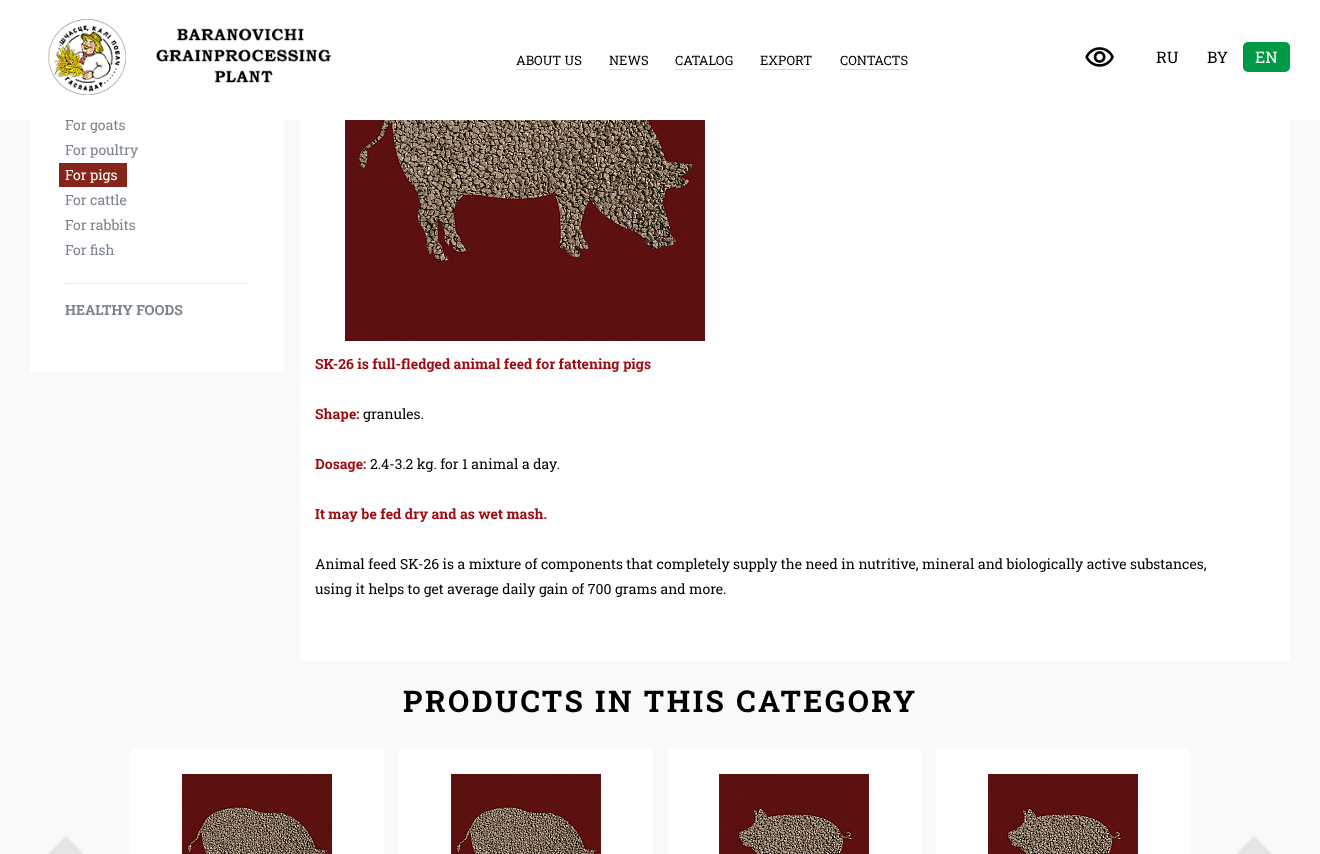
<svg xmlns="http://www.w3.org/2000/svg" width="1320" height="854" viewBox="0 0 1320 854">
  <style>
    .t1 { font: 13px Roboto Slab; fill: #000; }
    .t2 { font: 16px Roboto Slab; fill: #000; }
    .t3 { font: 16px Roboto Slab; fill: #fff; }
    .t4 { font: 14px Roboto Slab; fill: #7b838d; }
    .t5 { font: 14px Roboto Slab; fill: #fff; }
    .t6 { font: bold 14px Roboto Slab; fill: #7b838d; }
    .t7 { font: bold 14px Roboto Slab; fill: #9d0a0f; }
    .t8 { font: 14px Roboto Slab; fill: #000; }
    .t9 { font: bold 30px Roboto Slab; letter-spacing: 2.5px; fill: #000; }
  </style>
  <rect width="100%" height="100%" fill="#f9f9f9"/>
  <rect x="0" y="0" width="1320" height="120" fill="#fff"/>
  <image x="48" y="19" width="283" height="76" href="images/1.png"/>
  <text x="516" y="65" class="t1">ABOUT US</text>
  <rect x="516" y="69" width="66" height="1" fill="#d2e6c0"/>
  <text x="609" y="65" class="t1">NEWS</text>
  <rect x="609" y="69" width="39" height="1" fill="#d2e6c0"/>
  <text x="675" y="65" class="t1">CATALOG</text>
  <rect x="675" y="69" width="58" height="1" fill="#d2e6c0"/>
  <text x="760" y="65" class="t1">EXPORT</text>
  <rect x="760" y="69" width="53" height="1" fill="#d2e6c0"/>
  <text x="840" y="65" class="t1">CONTACTS</text>
  <rect x="840" y="69" width="68" height="1" fill="#d2e6c0"/>
  <image x="1085" y="47" width="29" height="20" href="images/2.png"/>
  <text x="1156" y="63" class="t2">RU</text>
  <text x="1207" y="63" class="t2">BY</text>
  <rect x="1243" y="42" width="47" height="30" rx="5" fill="#009946"/>
  <text x="1255" y="63" class="t3">EN</text>
  <rect x="30" y="120" width="254" height="252" fill="#fff"/>
  <rect x="65" y="283" width="184" height="1" fill="#e9e9e9"/>
  <text x="65" y="130" class="t4">For goats</text>
  <text x="65" y="155" class="t4">For poultry</text>
  <rect x="59" y="163" width="68" height="24" fill="#88251b"/>
  <text x="65" y="180" class="t5">For pigs</text>
  <text x="65" y="205" class="t4">For cattle</text>
  <text x="65" y="230" class="t4">For rabbits</text>
  <text x="65" y="255" class="t4">For fish</text>
  <text x="65" y="315" class="t6">HEALTHY FOODS</text>
  <rect x="300" y="120" width="990" height="541" fill="#fff"/>
  <image x="345" y="120" width="360" height="221" href="images/3.png"/>
  <text x="315" y="369" class="t7">SK-26 is full-fledged animal feed for fattening pigs</text>
  <text x="315" y="419" class="t7">Shape:</text>
  <text x="363" y="419" class="t8">granules.</text>
  <text x="315" y="469" class="t7">Dosage:</text>
  <text x="370" y="469" class="t8">2.4-3.2 kg. for 1 animal a day.</text>
  <text x="315" y="519" class="t7">It may be fed dry and as wet mash.</text>
  <text x="315" y="569" class="t8">Animal feed SK-26 is a mixture of components that completely supply the need in nutritive, mineral and biologically active substances,</text>
  <text x="315" y="594" class="t8">using it helps to get average daily gain of 700 grams and more.</text>
  <text x="403" y="712" class="t9">PRODUCTS IN THIS CATEGORY</text>
  <rect x="130" y="749" width="254" height="105" fill="#fff"/>
  <image x="182" y="774" width="150" height="80" href="images/4.png"/>
  <rect x="399" y="749" width="254" height="105" fill="#fff"/>
  <image x="451" y="774" width="150" height="80" href="images/4.png"/>
  <rect x="668" y="749" width="253" height="105" fill="#fff"/>
  <image x="719" y="774" width="150" height="80" href="images/5.png"/>
  <rect x="936" y="749" width="254" height="105" fill="#fff"/>
  <image x="988" y="774" width="150" height="80" href="images/5.png"/>
  <image x="48" y="836" width="36" height="18" href="images/6.png"/>
  <image x="1236" y="836" width="36" height="18" href="images/6.png"/>
</svg>
